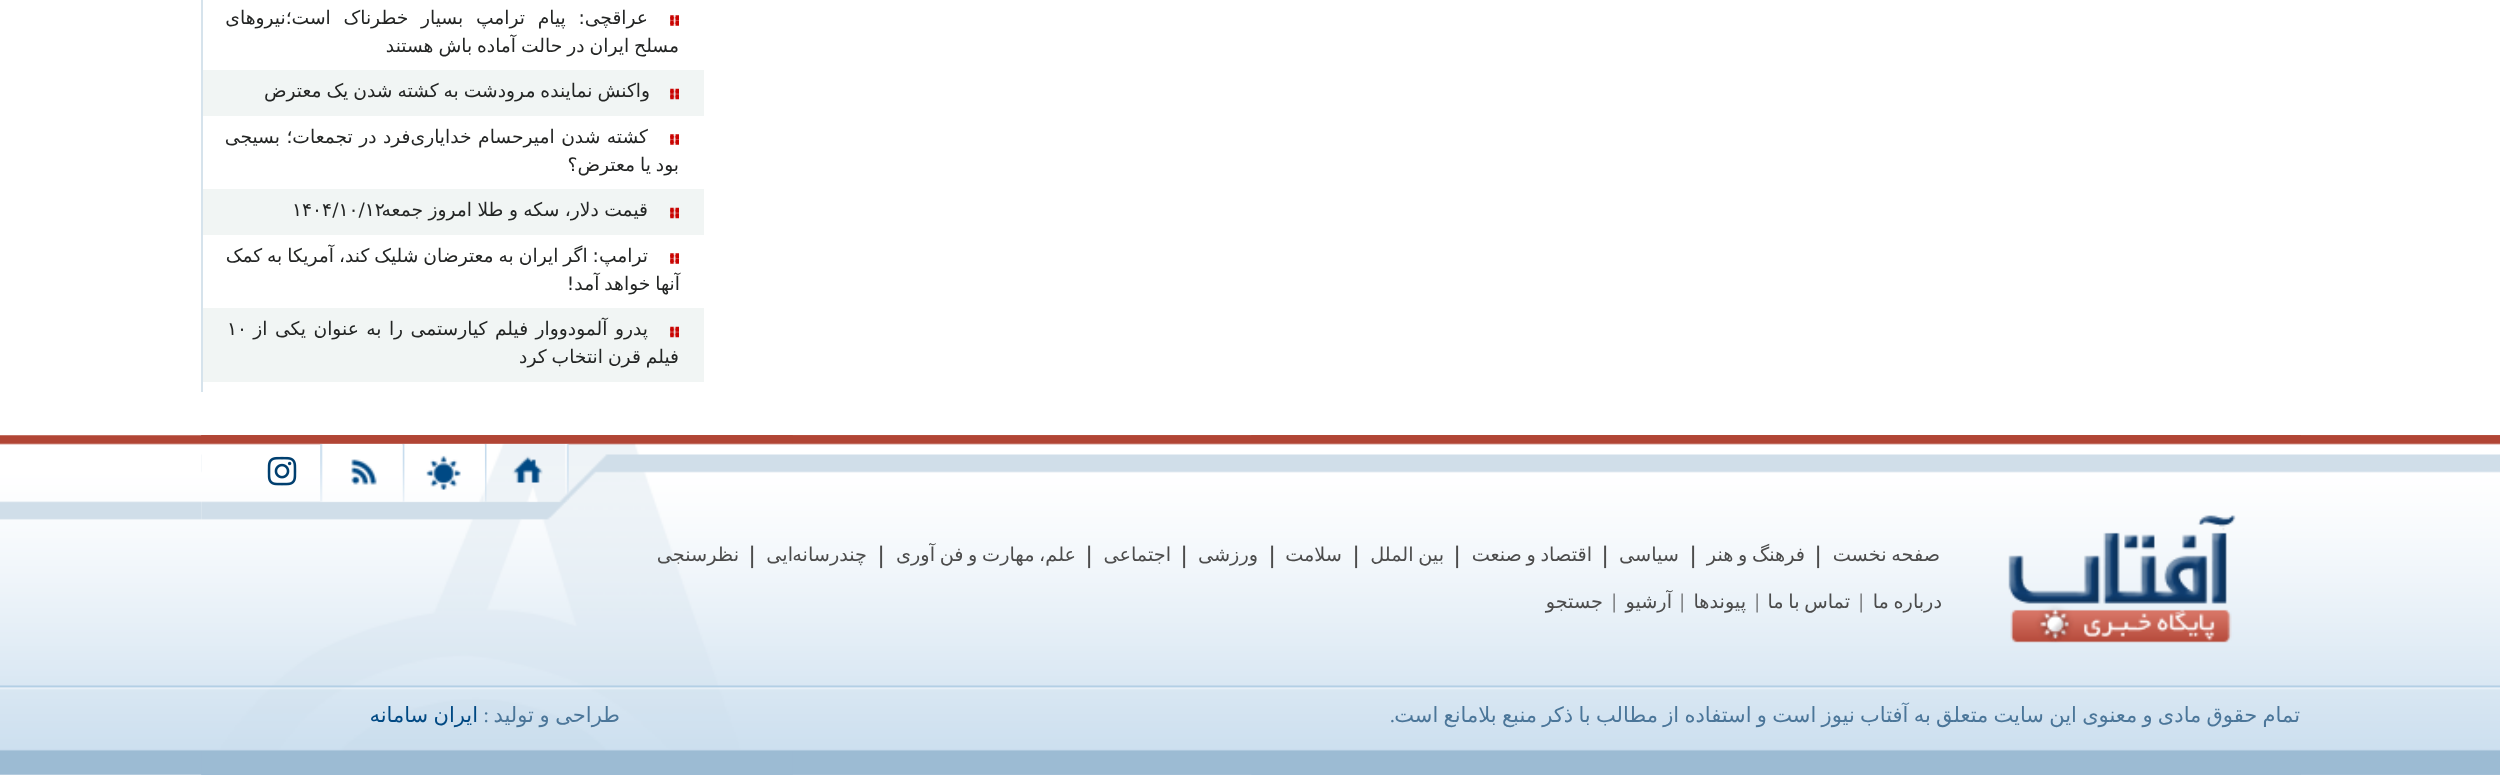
<svg xmlns="http://www.w3.org/2000/svg" width="2500" height="775" viewBox="0 0 2500 775">
  <style>
    .t1 { font: 18.7px DejaVu Sans; direction: rtl; fill: #232524; }
    .t2 { font: 18.7px DejaVu Sans; fill: #232524; }
    .t3 { font: 19.25px DejaVu Sans; direction: rtl; fill: #4c4c4c; }
    .t4 { font: 24px Liberation Sans; fill: #4c4c4c; }
    .t5 { font: 21px Liberation Serif; fill: #4c4c4c; }
    .t6 { font: 21px DejaVu Sans; direction: rtl; fill: #4b7699; }
    .t7 { font: 21px Liberation Serif; direction: rtl; fill: #4b7699; }
    .t8 { font: 21px DejaVu Sans; direction: rtl; fill: #004983; }
  </style>
  <defs>
    <clipPath id="clip1"><rect x="621" y="688" width="1680" height="63"/></clipPath>
  </defs>
  <rect width="100%" height="100%" fill="#fff"/>
  <rect x="201" y="0" width="2" height="392" fill="#d6e3ec"/>
  <image x="670" y="17" width="9" height="9" href="images/1.png"/>
  <text x="648" y="24" word-spacing="6.75" class="t1">عراقچی: پیام ترامپ بسیار خطرناک است؛نیرو‌های</text>
  <text x="679" y="52" word-spacing="-1" class="t1">مسلح ایران در حالت آماده باش هستند</text>
  <image x="670" y="15" width="9" height="9" href="images/2.png"/>
  <rect x="203" y="70" width="501" height="46" fill="#f1f5f4"/>
  <image x="670" y="90" width="9" height="10" href="images/4.png"/>
  <image x="670" y="88" width="9" height="10" href="images/3.png"/>
  <text x="650" y="97" word-spacing="-1" class="t1">واکنش نماینده مرودشت به کشته شدن یک معترض</text>
  <image x="670" y="136" width="9" height="9" href="images/1.png"/>
  <text x="648" y="143" word-spacing="0.5" class="t1">کشته شدن امیرحسام خدایاری‌فرد در تجمعات؛ بسیجی</text>
  <text x="679" y="171" word-spacing="-1" class="t1">بود یا معترض؟</text>
  <image x="670" y="134" width="9" height="9" href="images/2.png"/>
  <rect x="203" y="189" width="501" height="46" fill="#f1f5f4"/>
  <image x="670" y="209" width="9" height="10" href="images/4.png"/>
  <image x="670" y="207" width="9" height="10" href="images/3.png"/>
  <text x="292" y="216" class="t2">۱۴۰۴/۱۰/۱۲</text>
  <text x="648" y="216" word-spacing="-0.5" class="t1">قیمت دلار، سکه و طلا امروز جمعه</text>
  <image x="670" y="255" width="9" height="9" href="images/1.png"/>
  <text x="648" y="262" word-spacing="-1" class="t1">ترامپ: اگر ایران به معترضان شلیک کند، آمریکا به کمک</text>
  <text x="680" y="290" word-spacing="-1" class="t1">آنها خواهد آمد!</text>
  <image x="670" y="253" width="9" height="9" href="images/2.png"/>
  <rect x="203" y="308" width="501" height="74" fill="#f1f5f4"/>
  <image x="670" y="328" width="9" height="10" href="images/4.png"/>
  <text x="648" y="335" word-spacing="1.5" class="t1">پدرو آلمودووار فیلم کیارستمی را به عنوان یکی از</text>
  <text x="227" y="335" class="t2">۱۰</text>
  <text x="679" y="363" word-spacing="-1" class="t1">فیلم قرن انتخاب کرد</text>
  <image x="670" y="326" width="9" height="10" href="images/3.png"/>
  <image x="0" y="435" width="2500" height="340" href="images/5.png"/>
  <image x="1251" y="435" width="1249" height="340" href="images/6.png"/>
  <image x="201" y="435" width="2100" height="340" href="images/7.png"/>
  <image x="2008" y="515" width="228" height="128" href="images/8.png"/>
  <text x="1940" y="561" word-spacing="-1.5" class="t3">صفحه نخست</text>
  <text x="1815" y="563" class="t4">|</text>
  <text x="1805" y="561" word-spacing="-1.5" class="t3">فرهنگ و هنر</text>
  <text x="1690" y="563" class="t4">|</text>
  <text x="1679" y="561" class="t3">سیاسی</text>
  <text x="1602" y="563" class="t4">|</text>
  <text x="1592" y="561" word-spacing="-1.5" class="t3">اقتصاد و صنعت</text>
  <text x="1454" y="563" class="t4">|</text>
  <text x="1444" y="561" word-spacing="-1.5" class="t3">بین الملل</text>
  <text x="1353" y="563" class="t4">|</text>
  <text x="1342" y="561" class="t3">سلامت</text>
  <text x="1269" y="563" class="t4">|</text>
  <text x="1258" y="561" class="t3">ورزشی</text>
  <text x="1181" y="563" class="t4">|</text>
  <text x="1171" y="561" class="t3">اجتماعی</text>
  <text x="1086" y="563" class="t4">|</text>
  <text x="1076" y="561" word-spacing="-1.5" class="t3">علم، مهارت و فن آوری</text>
  <text x="878" y="563" class="t4">|</text>
  <text x="867" y="561" class="t3">چندرسانه</text>
  <image x="201" y="435" width="592" height="340" href="images/9.png"/>
  <text x="793" y="561" class="t3">ایی</text>
  <text x="749" y="563" class="t4">|</text>
  <text x="739" y="561" class="t3">نظرسنجی</text>
  <text x="1942" y="608" word-spacing="-1.5" class="t3">درباره ما</text>
  <text x="1859" y="608" class="t5">|</text>
  <text x="1850" y="608" word-spacing="-1.5" class="t3">تماس با ما</text>
  <text x="1755" y="608" class="t5">|</text>
  <text x="1746" y="608" class="t3">پیوندها</text>
  <text x="1680" y="608" class="t5">|</text>
  <text x="1672" y="608" class="t3">آرشیو</text>
  <text x="1612" y="608" class="t5">|</text>
  <text x="1603" y="608" class="t3">جستجو</text>
  <image x="484" y="444" width="85" height="58" href="images/10.png"/>
  <image x="402" y="444" width="83" height="58" href="images/11.png"/>
  <image x="320" y="444" width="83" height="58" href="images/12.png"/>
  <image x="267" y="456" width="30" height="30" href="images/13.png"/>
  <g clip-path="url(#clip1)">
    <text x="2300" y="722" word-spacing="-1.4" class="t6">تمام حقوق مادی و معنوی این سایت متعلق به آفتاب نیوز است و استفاده از مطالب با ذکر منبع بلامانع است</text>
  </g>
  <text x="1395" y="722" class="t7">.</text>
  <text x="620" y="722" word-spacing="-1" class="t6">طراحی و تولید</text>
  <text x="489" y="722" class="t7">:</text>
  <text x="478" y="722" word-spacing="-1.4" class="t8">ایران سامانه</text>
</svg>
